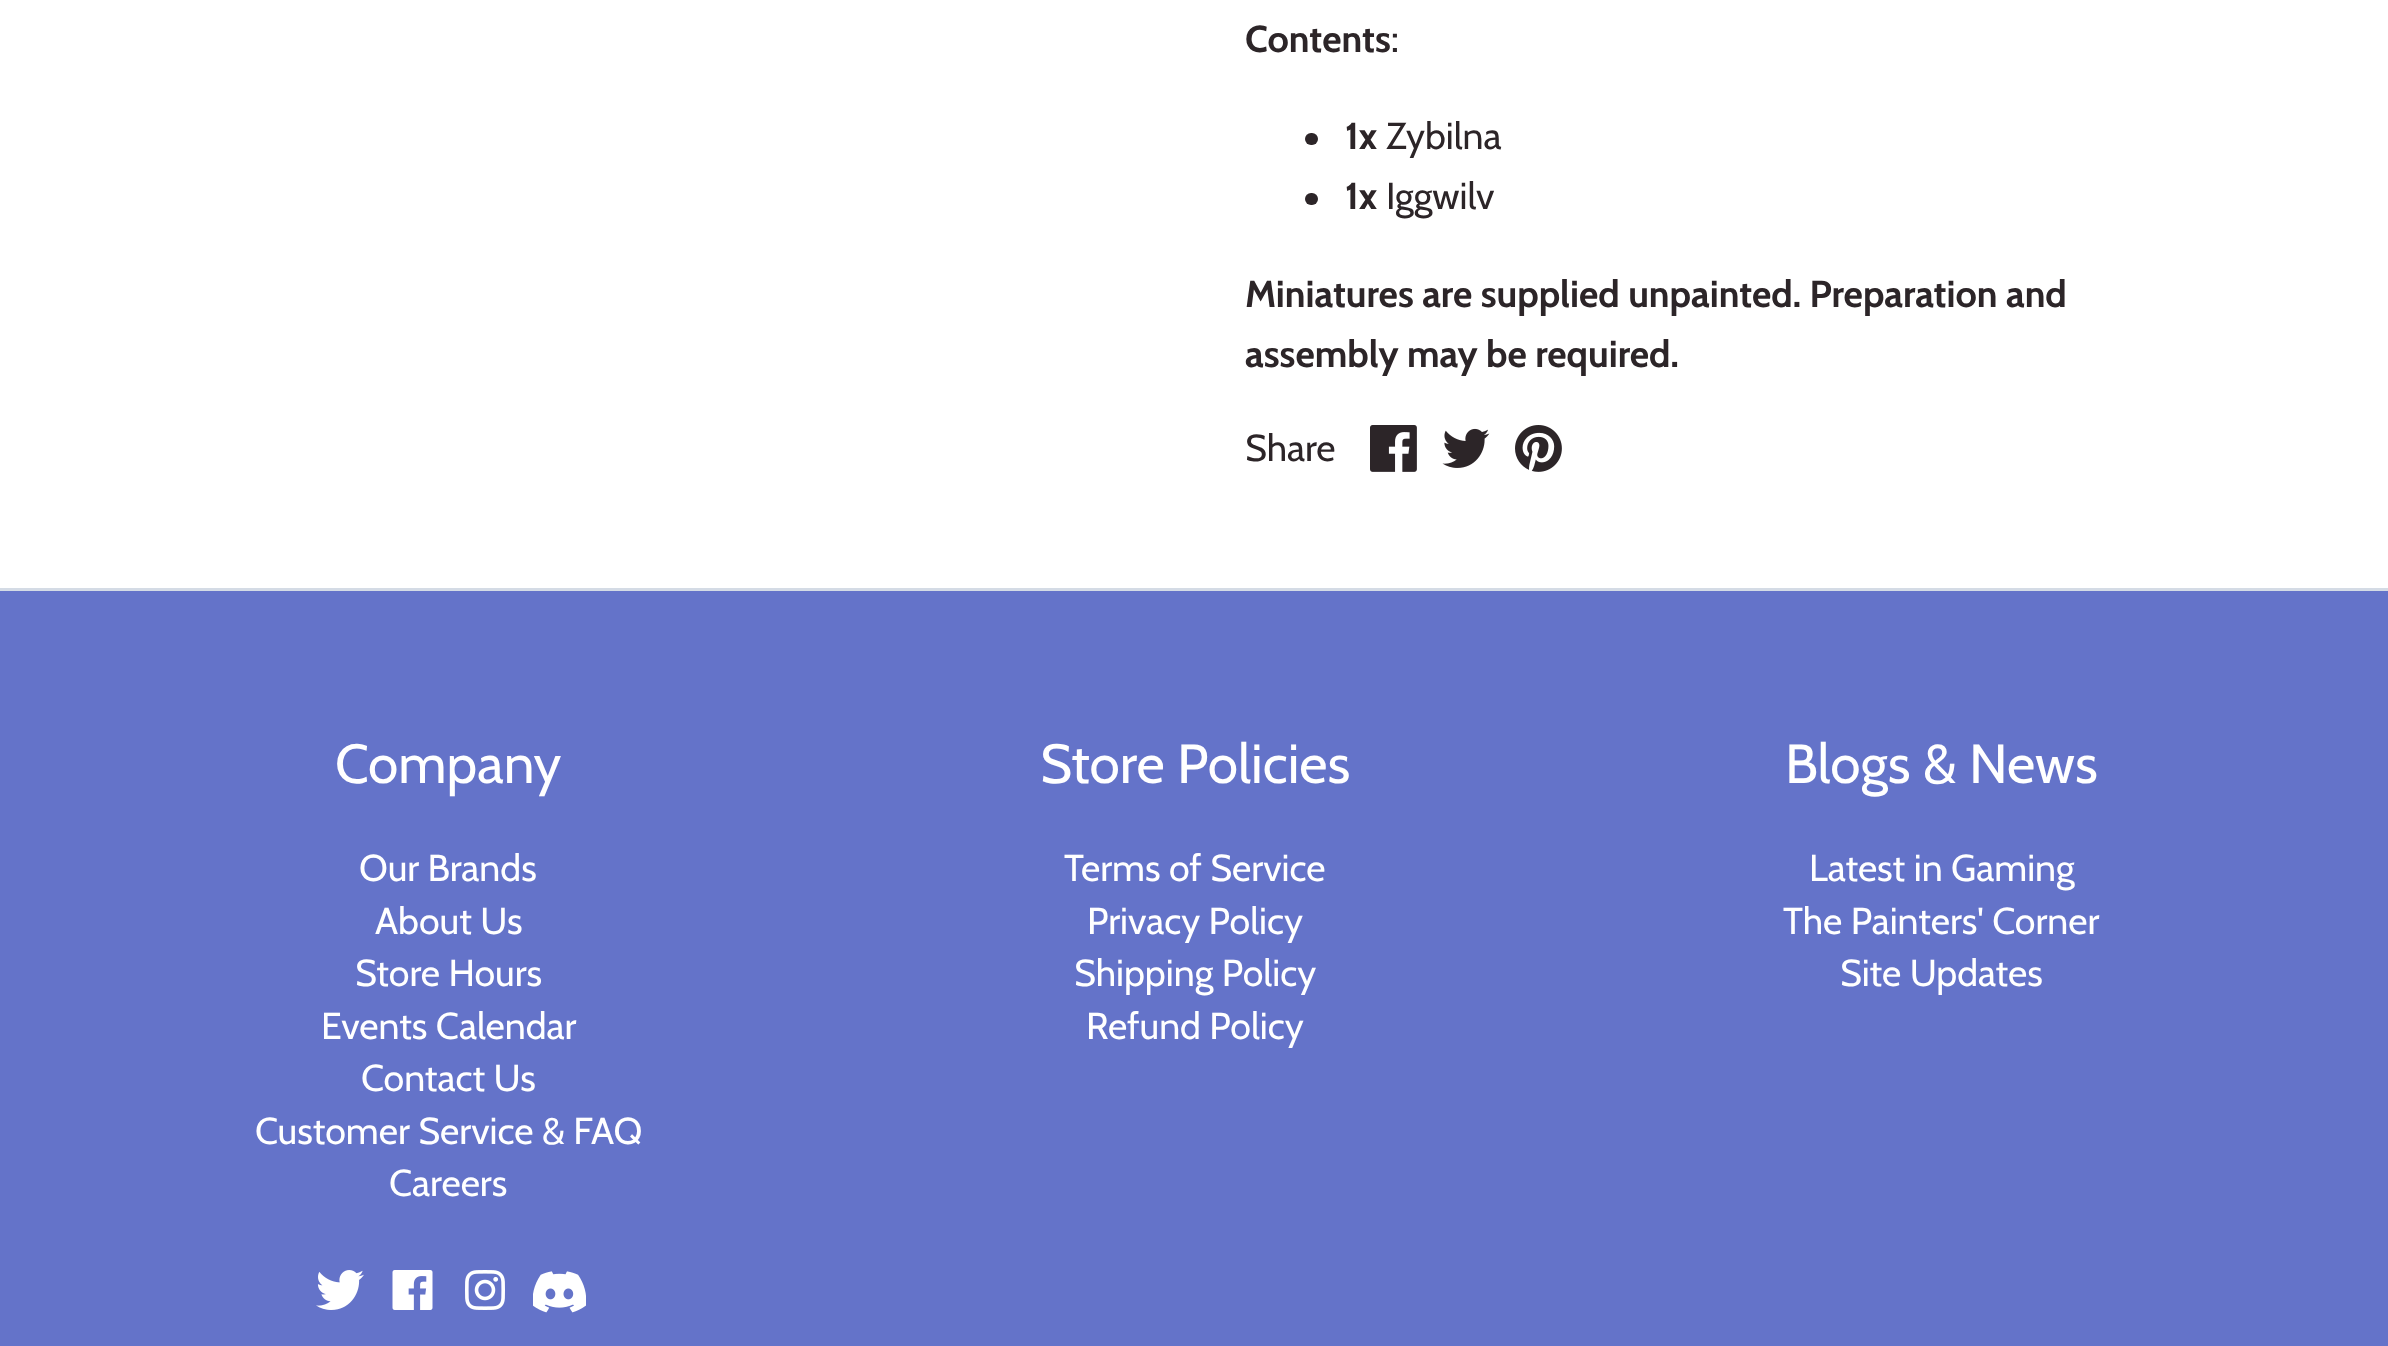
<svg xmlns="http://www.w3.org/2000/svg" width="2388" height="1346" viewBox="0 0 2388 1346">
  <style>
    .t1 { font: bold 37.5px Cabin; fill: #2c2528; }
    .t2 { font: 37.5px Cabin; fill: #2c2528; }
    .t3 { font: 55px Cabin; fill: #fff; }
    .t4 { font: 37.5px Cabin; fill: #fff; }
  </style>
  <rect width="100%" height="100%" fill="#6473c9"/>
  <rect x="0" y="0" width="2388" height="588" fill="#fff"/>
  <text x="1245" y="52" class="t1">Contents</text>
  <text x="1391" y="52" class="t2">:</text>
  <rect x="1305" y="133" width="13" height="12" rx="6" fill="#2c2528"/>
  <text x="1345" y="149" class="t1">1x</text>
  <text x="1386" y="149" class="t2">Zybilna</text>
  <rect x="1305" y="193" width="13" height="12" rx="6" fill="#2c2528"/>
  <text x="1345" y="209" class="t1">1x</text>
  <text x="1386" y="209" class="t2">Iggwilv</text>
  <text x="1245" y="307" class="t1">Miniatures are supplied unpainted. Preparation and</text>
  <text x="1245" y="367" class="t1">assembly may be required.</text>
  <text x="1245" y="461" class="t2">Share</text>
  <image x="1370" y="425" width="47" height="47" href="images/1.png"/>
  <image x="1442" y="428" width="48" height="40" href="images/2.png"/>
  <image x="1515" y="425" width="47" height="47" href="images/3.png"/>
  <rect x="0" y="588" width="2388" height="3" fill="#d4dbe5"/>
  <text x="335" y="783" class="t3">Company</text>
  <text x="359" y="881" class="t4">Our Brands</text>
  <text x="375" y="934" class="t4">About Us</text>
  <text x="355" y="986" class="t4">Store Hours</text>
  <text x="321" y="1039" class="t4">Events Calendar</text>
  <text x="361" y="1091" class="t4">Contact Us</text>
  <text x="255" y="1144" class="t4">Customer Service &amp; FAQ</text>
  <text x="389" y="1196" class="t4">Careers</text>
  <image x="316" y="1270" width="48" height="40" href="images/4.png"/>
  <image x="392" y="1270" width="41" height="40" href="images/5.png"/>
  <image x="465" y="1270" width="40" height="40" href="images/6.png"/>
  <image x="533" y="1271" width="53" height="42" href="images/7.png"/>
  <text x="1040" y="783" class="t3">Store Policies</text>
  <text x="1064" y="881" class="t4">Terms of Service</text>
  <text x="1087" y="934" class="t4">Privacy Policy</text>
  <text x="1074" y="986" class="t4">Shipping Policy</text>
  <text x="1086" y="1039" class="t4">Refund Policy</text>
  <text x="1785" y="783" class="t3">Blogs &amp; News</text>
  <text x="1809" y="881" class="t4">Latest in Gaming</text>
  <text x="1783" y="934" class="t4">The Painters' Corner</text>
  <text x="1840" y="986" class="t4">Site Updates</text>
</svg>
